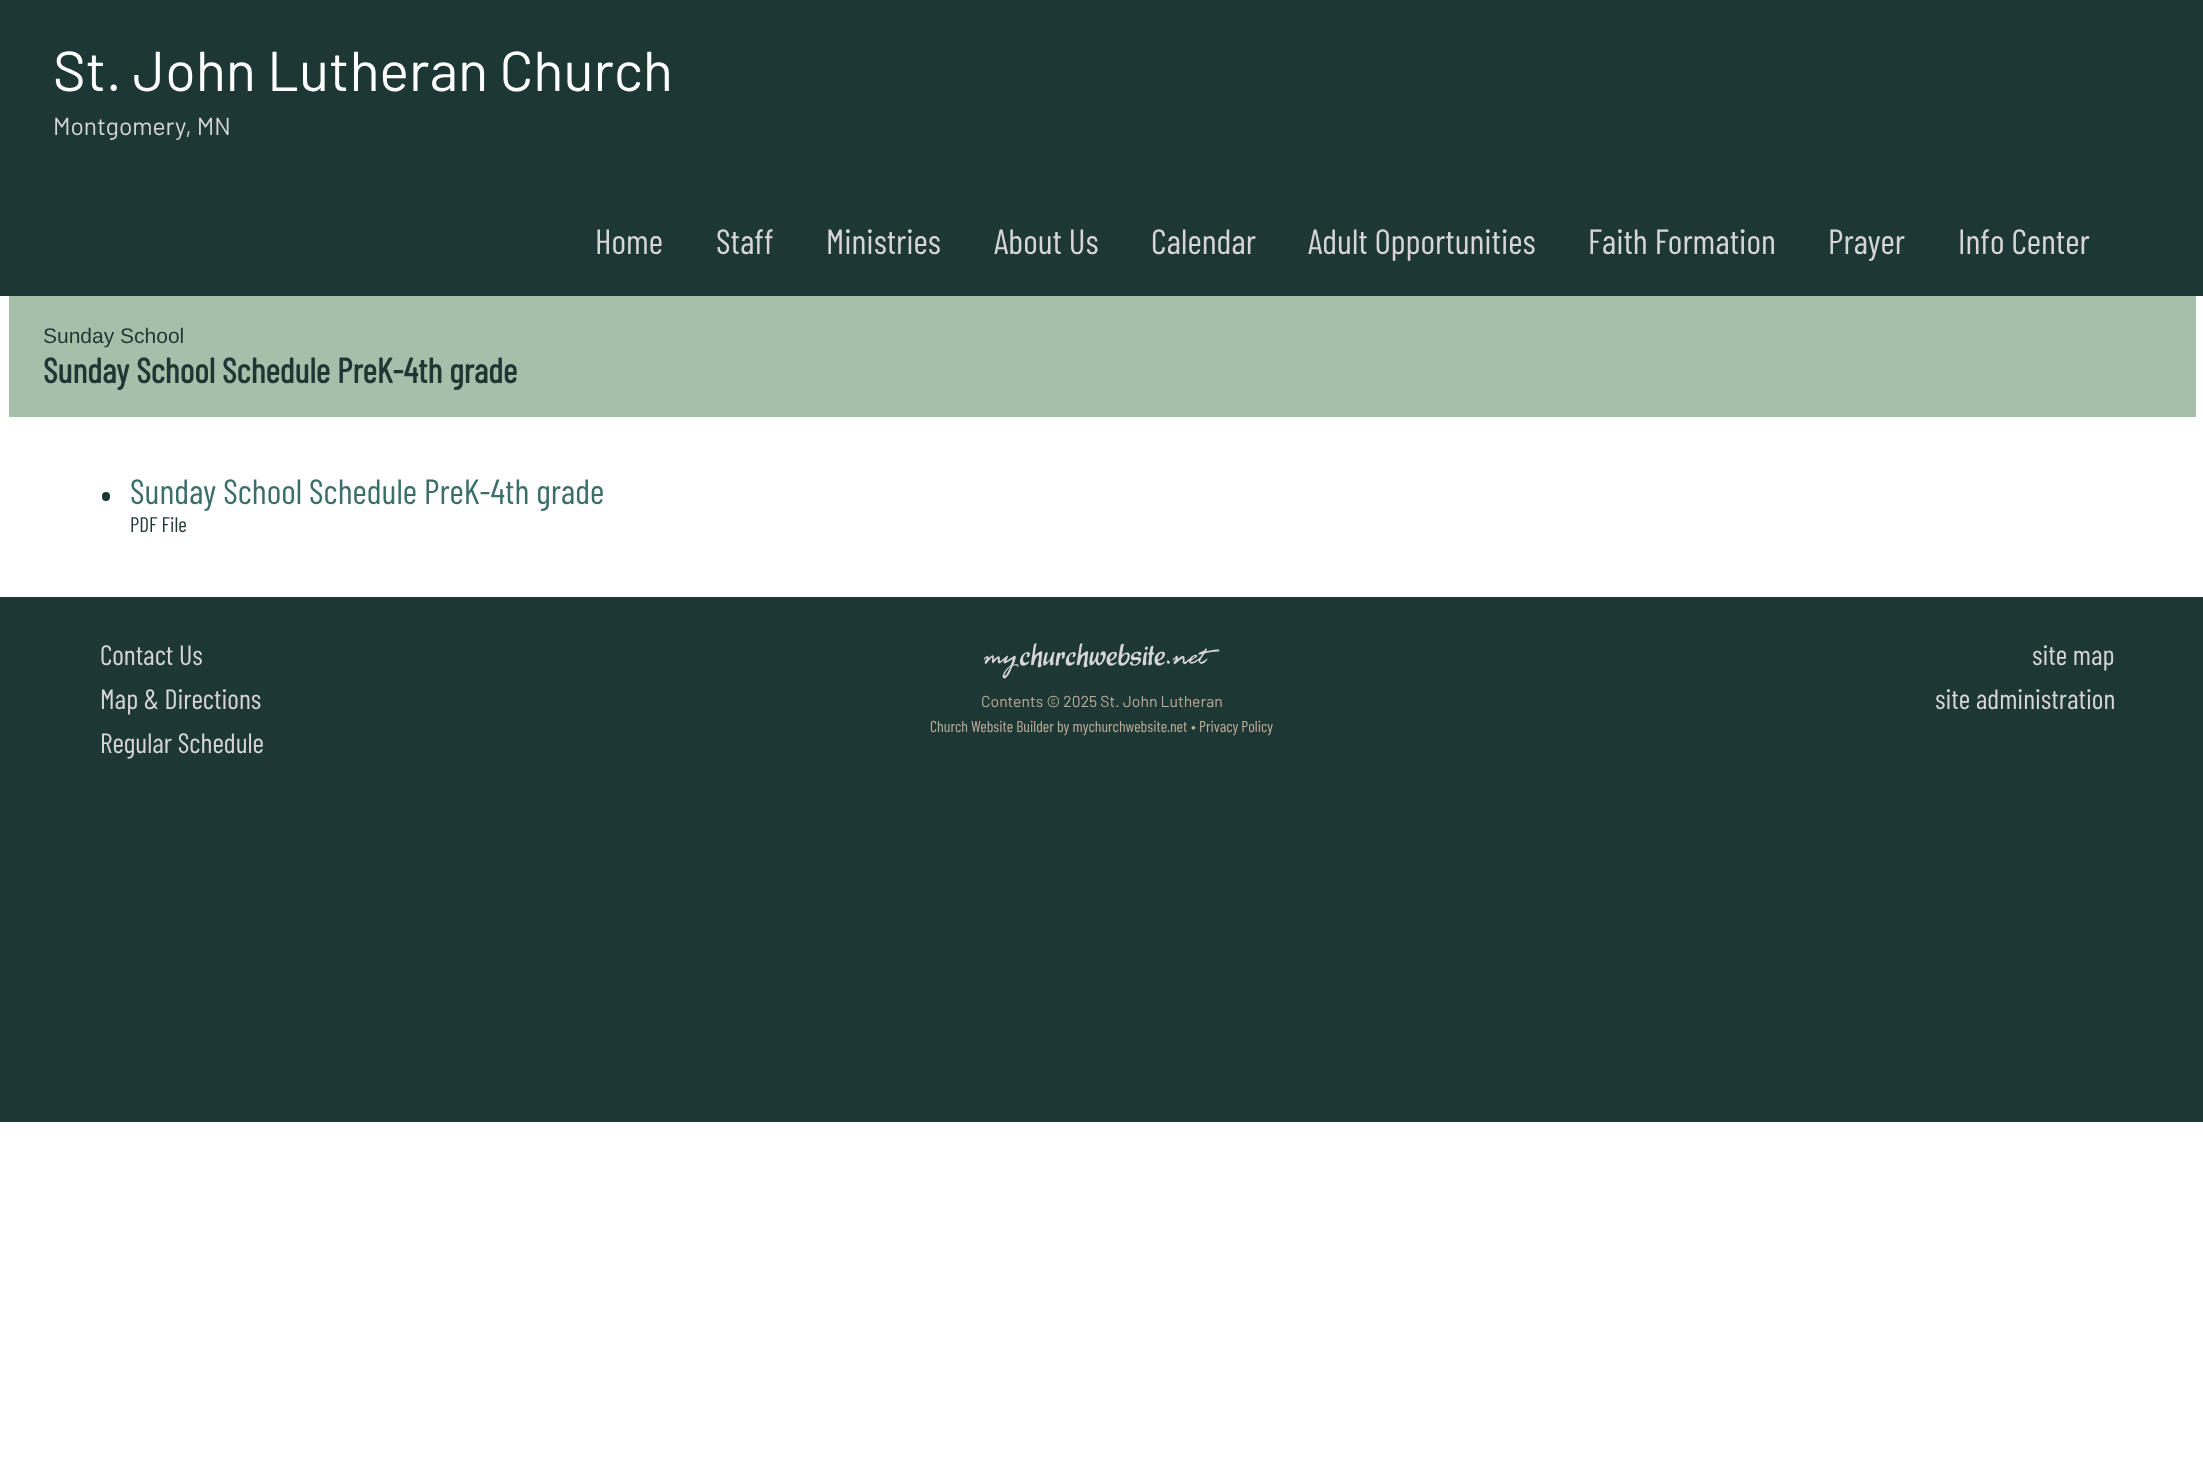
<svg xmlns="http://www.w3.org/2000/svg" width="2203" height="1484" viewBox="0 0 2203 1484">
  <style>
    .t1 { font: 56px Barlow; fill: #fff; }
    .t2 { font: 24.5px Barlow; fill: #d7d5d8; }
    .t3 { font: 35px Barlow Condensed; fill: #d7d5d8; }
    .t4 { font: 21px Liberation Sans; fill: #1d3734; }
    .t5 { font: bold 35px Barlow Condensed; fill: #1d3734; }
    .t6 { font: 35px Barlow Condensed; fill: #3a6e68; }
    .t7 { font: 21px Barlow Condensed; fill: #1d3734; }
    .t8 { font: 28px Barlow Condensed; fill: #d7d5d8; }
    .t9 { font: 15.75px Barlow; fill: #bfad99; }
    .t10 { font: 15.75px Barlow Condensed; fill: #bfad99; }
  </style>
  <rect width="100%" height="100%" fill="#fff"/>
  <rect x="0" y="0" width="2203" height="296" fill="#1d3734"/>
  <text x="53" y="91" class="t1">St. John Lutheran Church</text>
  <text x="53" y="135" class="t2">Montgomery, MN</text>
  <text x="595" y="254" class="t3">Home</text>
  <text x="716" y="254" class="t3">Staff</text>
  <text x="826" y="254" class="t3">Ministries</text>
  <text x="994" y="254" class="t3">About Us</text>
  <text x="1151" y="254" class="t3">Calendar</text>
  <text x="1308" y="254" class="t3">Adult Opportunities</text>
  <text x="1588" y="254" class="t3">Faith Formation</text>
  <text x="1828" y="254" class="t3">Prayer</text>
  <text x="1958" y="254" class="t3">Info Center</text>
  <rect x="9" y="296" width="2187" height="121" fill="#a4c0aa"/>
  <text x="43" y="343" class="t4">Sunday School</text>
  <text x="43" y="383" class="t5">Sunday School Schedule PreK-4th grade</text>
  <rect x="102" y="492" width="8" height="9" rx="4" fill="#1d3734"/>
  <text x="130" y="504" class="t6">Sunday School Schedule PreK-4th grade</text>
  <text x="130" y="532" class="t7">PDF File</text>
  <rect x="0" y="597" width="2203" height="525" fill="#1d3734"/>
  <text x="100" y="665" class="t8">Contact Us</text>
  <text x="100" y="709" class="t8">Map &amp; Directions</text>
  <text x="100" y="753" class="t8">Regular Schedule</text>
  <text x="2032" y="665" class="t8">site map</text>
  <text x="1935" y="709" class="t8">site administration</text>
  <image x="984" y="643" width="236" height="36" href="images/1.png"/>
  <text x="981" y="707" class="t9">Contents © 2025 St. John Lutheran</text>
  <text x="930" y="732" class="t10">Church Website Builder by mychurchwebsite.net</text>
  <text x="1191" y="732" class="t9">•</text>
  <text x="1199" y="732" class="t10">Privacy Policy</text>
</svg>
